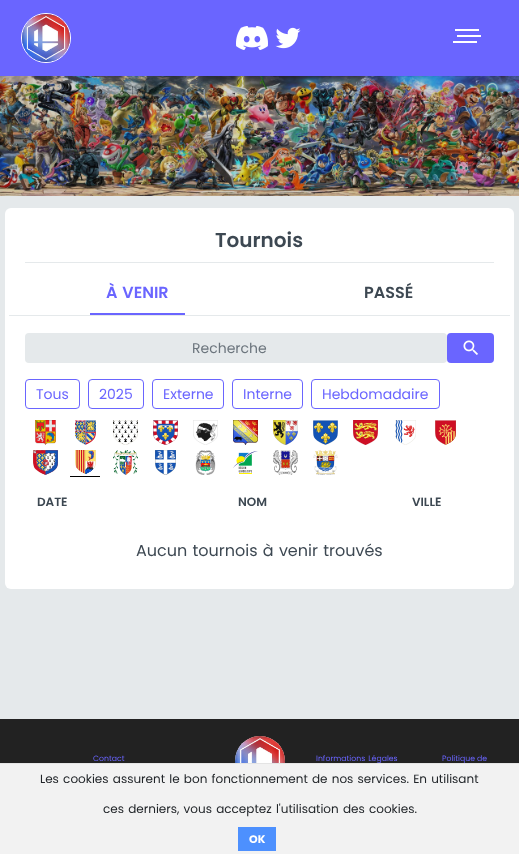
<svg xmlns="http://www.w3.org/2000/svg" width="519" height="854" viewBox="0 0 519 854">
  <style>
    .t1 { font: 600 20px Poppins; fill: #3d4852; }
    .t2 { font: 600 16px Poppins; fill: #6a65ff; }
    .t3 { font: 600 16px Poppins; fill: #3d4852; }
    .t4 { font: 14px Poppins; fill: #6c757d; }
    .t5 { font: 14px Poppins; fill: #6a65ff; }
    .t6 { font: 600 12px Poppins; fill: #3d4852; }
    .t7 { font: 16px Poppins; fill: #3d4852; }
    .t8 { font: 7.75px Poppins; fill: #6a65ff; }
    .t9 { font: 12px Poppins; fill: #212529; }
    .t10 { font: bold 11px Poppins; fill: #fff; }
  </style>
  <rect width="100%" height="100%" fill="#e5e9eb"/>
  <rect x="0" y="0" width="519" height="76" fill="#6a65ff"/>
  <circle cx="46" cy="38" r="24.5" fill="none" stroke="#fff"/>
  <image x="22" y="14" width="48" height="48" href="images/1.png"/>
  <image x="236" y="26" width="32" height="24" href="images/2.png"/>
  <image x="275" y="27" width="26" height="22" href="images/3.png"/>
  <rect x="455" y="29" width="24" height="2" fill="#fff"/>
  <rect x="457" y="35" width="24" height="2" fill="#fff"/>
  <rect x="453" y="41" width="24" height="2" fill="#fff"/>
  <image x="0" y="76" width="519" height="120" href="images/4.png"/>
  <rect x="5" y="208" width="509" height="381" rx="6" fill="#fff"/>
  <rect x="25" y="262" width="469" height="1" fill="#e5e9eb"/>
  <text x="215" y="247" class="t1">Tournois</text>
  <rect x="9" y="315" width="501" height="1" fill="#e5e9eb"/>
  <rect x="90" y="313" width="95" height="2" fill="#6a65ff"/>
  <text x="106" y="298" word-spacing="1" class="t2">À VENIR</text>
  <text x="364" y="298" class="t3">PASSÉ</text>
  <rect x="25" y="333" width="422" height="30" rx="4" fill="#e5e9eb"/>
  <text x="192" y="353" class="t4">Recherche</text>
  <rect x="447" y="333" width="47" height="30" rx="4" fill="#6a65ff"/>
  <image x="463" y="340" width="15" height="15" href="images/5.png"/>
  <rect x="25.5" y="379.5" width="54" height="29" rx="3.5" fill="none" stroke="#6a65ff"/>
  <text x="36" y="399" class="t5">Tous</text>
  <rect x="88.5" y="379.5" width="55" height="29" rx="3.5" fill="none" stroke="#6a65ff"/>
  <text x="99" y="399" class="t5">2025</text>
  <rect x="152.5" y="379.5" width="71" height="29" rx="3.5" fill="none" stroke="#6a65ff"/>
  <text x="163" y="399" class="t5">Externe</text>
  <rect x="232.5" y="379.5" width="70" height="29" rx="3.5" fill="none" stroke="#6a65ff"/>
  <text x="243" y="399" class="t5">Interne</text>
  <rect x="311.5" y="379.5" width="128" height="29" rx="3.5" fill="none" stroke="#6a65ff"/>
  <text x="322" y="399" class="t5">Hebdomadaire</text>
  <image x="35" y="420" width="21" height="25" href="images/6.png"/>
  <image x="75" y="420" width="21" height="25" href="images/7.png"/>
  <image x="113" y="420" width="25" height="25" href="images/8.png"/>
  <image x="153" y="420" width="25" height="25" href="images/9.png"/>
  <image x="193" y="420" width="25" height="25" href="images/10.png"/>
  <image x="233" y="420" width="25" height="25" href="images/11.png"/>
  <image x="273" y="420" width="25" height="25" href="images/12.png"/>
  <image x="313" y="420" width="25" height="25" href="images/13.png"/>
  <image x="353" y="420" width="25" height="25" href="images/14.png"/>
  <image x="395" y="420" width="21" height="25" href="images/15.png"/>
  <image x="435" y="420" width="21" height="25" href="images/16.png"/>
  <image x="33" y="450" width="25" height="25" href="images/17.png"/>
  <image x="75" y="450" width="21" height="24" href="images/18.png"/>
  <rect x="70" y="476" width="30" height="1" fill="#000"/>
  <image x="113" y="450" width="25" height="25" href="images/19.png"/>
  <image x="155" y="450" width="21" height="25" href="images/20.png"/>
  <image x="195" y="450" width="21" height="25" href="images/21.png"/>
  <image x="233" y="451" width="25" height="23" href="images/22.png"/>
  <image x="273" y="450" width="25" height="25" href="images/23.png"/>
  <image x="313" y="450" width="25" height="25" href="images/24.png"/>
  <text x="37" y="506" class="t6">DATE</text>
  <text x="238" y="506" class="t6">NOM</text>
  <text x="412" y="506" class="t6">VILLE</text>
  <text x="136" y="556" word-spacing="1" class="t7">Aucun tournois à venir trouvés</text>
  <rect x="0" y="719" width="519" height="44" fill="#222"/>
  <text x="93" y="761" class="t8">Contact</text>
  <circle cx="260" cy="761" r="25" fill="#fff"/>
  <image x="235" y="736" width="50" height="27" href="images/25.png"/>
  <text x="316" y="761" word-spacing="1" class="t8">Informations Légales</text>
  <text x="442" y="761" class="t8">Politique de</text>
  <rect x="0" y="764" width="519" height="90" fill="#f2f2f2"/>
  <rect x="0" y="763" width="519" height="1" fill="#e4e4e4"/>
  <text x="40" y="783" word-spacing="1" class="t9">Les cookies assurent le bon fonctionnement de nos services. En utilisant</text>
  <text x="103" y="813" word-spacing="1" class="t9">ces derniers, vous acceptez l'utilisation des cookies.</text>
  <rect x="238" y="827" width="38" height="24" fill="#4d90fe"/>
  <text x="249" y="843" class="t10">OK</text>
</svg>
